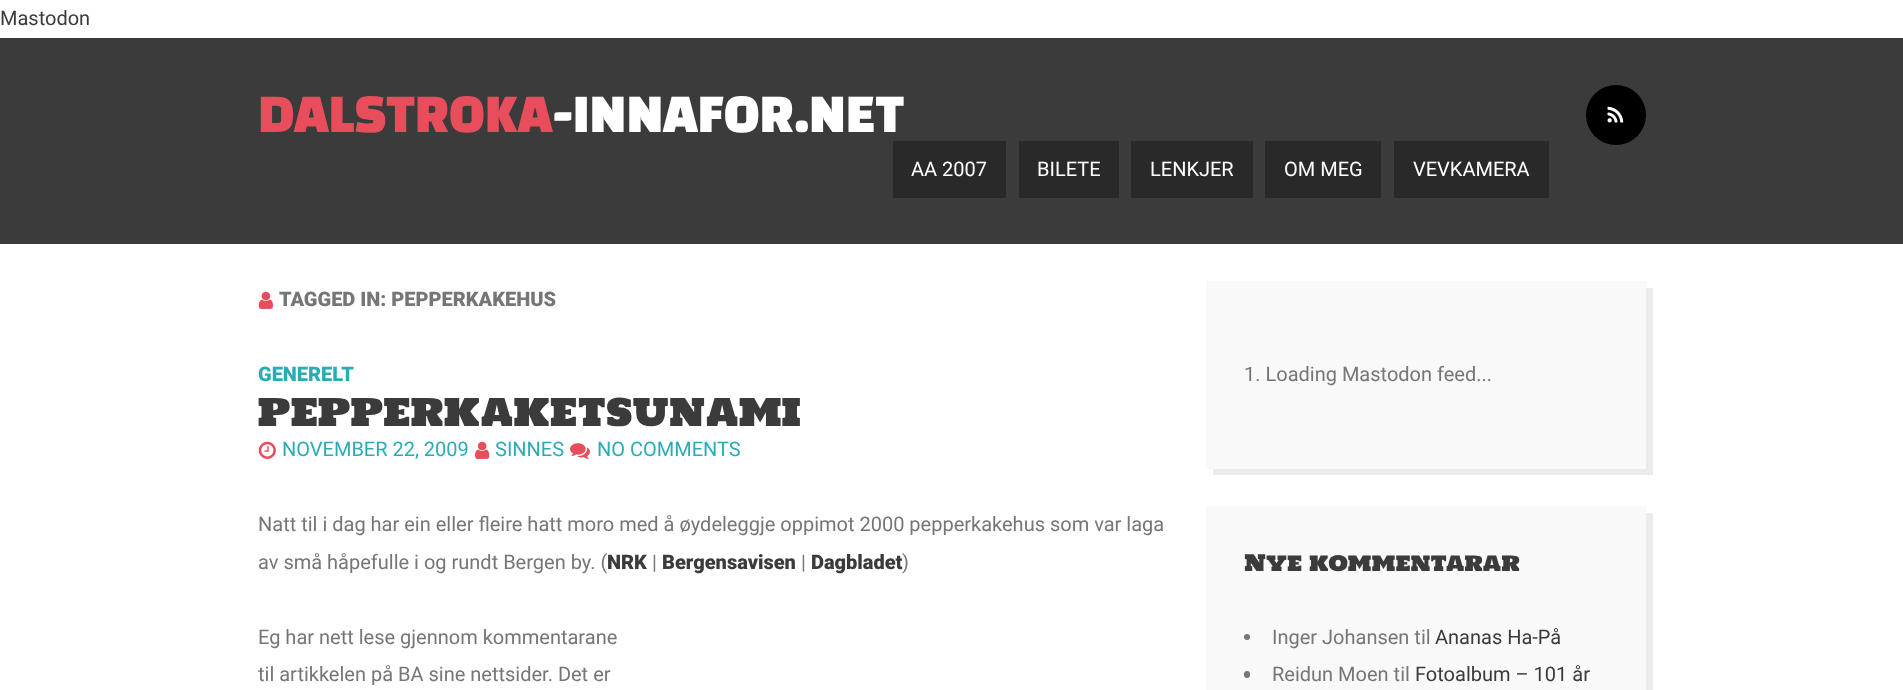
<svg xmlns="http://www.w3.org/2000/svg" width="1903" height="690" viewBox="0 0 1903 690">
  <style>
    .t1 { font: 20px Roboto; fill: #3b3b3b; }
    .t2 { font: 56.25px Changa One; fill: #e84d5b; }
    .t3 { font: 56.25px Changa One; fill: #fff; }
    .t4 { font: 20px Roboto; fill: #fff; }
    .t5 { font: 900 20px Roboto; fill: #767676; }
    .t6 { font: 900 20px Roboto; fill: #2bacb5; }
    .t7 { font: 37.5px Holtwood One SC; fill: #3b3b3b; }
    .t8 { font: 20px Roboto; fill: #2bacb5; }
    .t9 { font: 20px Roboto; fill: #767676; }
    .t10 { font: 900 20px Roboto; fill: #3b3b3b; }
    .t11 { font: 22.5px Holtwood One SC; fill: #3b3b3b; }
  </style>
  <rect width="100%" height="100%" fill="#fff"/>
  <text x="0" y="25" class="t1">Mastodon</text>
  <rect x="0" y="38" width="1903" height="206" fill="#3b3b3b"/>
  <text x="258" y="132" class="t2">DALSTROKA</text>
  <text x="553" y="132" class="t3">-INNAFOR.NET</text>
  <circle cx="1616" cy="115" r="30" fill="#000"/>
  <image x="1607" y="106" width="17" height="17" href="images/1.png"/>
  <rect x="893" y="141" width="113" height="57" fill="#292929"/>
  <text x="911" y="176" class="t4">AA 2007</text>
  <rect x="1019" y="141" width="100" height="57" fill="#292929"/>
  <text x="1037" y="176" class="t4">BILETE</text>
  <rect x="1131" y="141" width="122" height="57" fill="#292929"/>
  <text x="1150" y="176" class="t4">LENKJER</text>
  <rect x="1265" y="141" width="116" height="57" fill="#292929"/>
  <text x="1284" y="176" class="t4">OM MEG</text>
  <rect x="1394" y="141" width="155" height="57" fill="#292929"/>
  <text x="1413" y="176" class="t4">VEVKAMERA</text>
  <image x="258" y="291" width="15" height="18" href="images/2.png"/>
  <text x="279" y="306" class="t5">TAGGED IN: PEPPERKAKEHUS</text>
  <text x="258" y="381" class="t6">GENERELT</text>
  <text x="258" y="426" class="t7">PEPPERKAKETSUNAMI</text>
  <image x="258" y="441" width="18" height="18" href="images/3.png"/>
  <text x="282" y="456" class="t8">NOVEMBER 22, 2009</text>
  <image x="475" y="441" width="15" height="18" href="images/4.png"/>
  <text x="495" y="456" class="t8">SINNES</text>
  <image x="570" y="443" width="20" height="16" href="images/5.png"/>
  <text x="597" y="456" class="t8">NO COMMENTS</text>
  <text x="258" y="531" class="t9">Natt til i dag har ein eller fleire hatt moro med å øydeleggje oppimot 2000 pepperkakehus som var laga</text>
  <text x="258" y="569" class="t9">av små håpefulle i og rundt Bergen by. (</text>
  <text x="607" y="569" class="t10">NRK</text>
  <text x="652" y="569" class="t9">|</text>
  <text x="662" y="569" class="t10">Bergensavisen</text>
  <text x="801" y="569" class="t9">|</text>
  <text x="811" y="569" class="t10">Dagbladet</text>
  <text x="902" y="569" class="t9">)</text>
  <text x="258" y="644" class="t9">Eg har nett lese gjennom kommentarane</text>
  <text x="258" y="681" class="t9">til artikkelen på BA sine nettsider. Det er</text>
  <path d="M1213 469V475H1653V288H1646V469Z" fill="#eaebec"/>
  <rect x="1206" y="281" width="440" height="188" fill="#f9f9f9"/>
  <text x="1244" y="381" class="t9">1. Loading Mastodon feed...</text>
  <path d="M1213 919V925H1653V513H1646V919Z" fill="#eaebec"/>
  <rect x="1206" y="506" width="440" height="184" fill="#f9f9f9"/>
  <text x="1244" y="571" class="t11">Nye kommentarar</text>
  <circle cx="1247" cy="637" r="3" fill="#777"/>
  <text x="1272" y="644" class="t9">Inger Johansen til</text>
  <text x="1435" y="644" class="t1">Ananas Ha-På</text>
  <rect x="1244" y="671" width="6" height="7" rx="3" fill="#777"/>
  <text x="1272" y="681" class="t9">Reidun Moen til</text>
  <text x="1415" y="681" class="t1">Fotoalbum – 101 år</text>
</svg>
